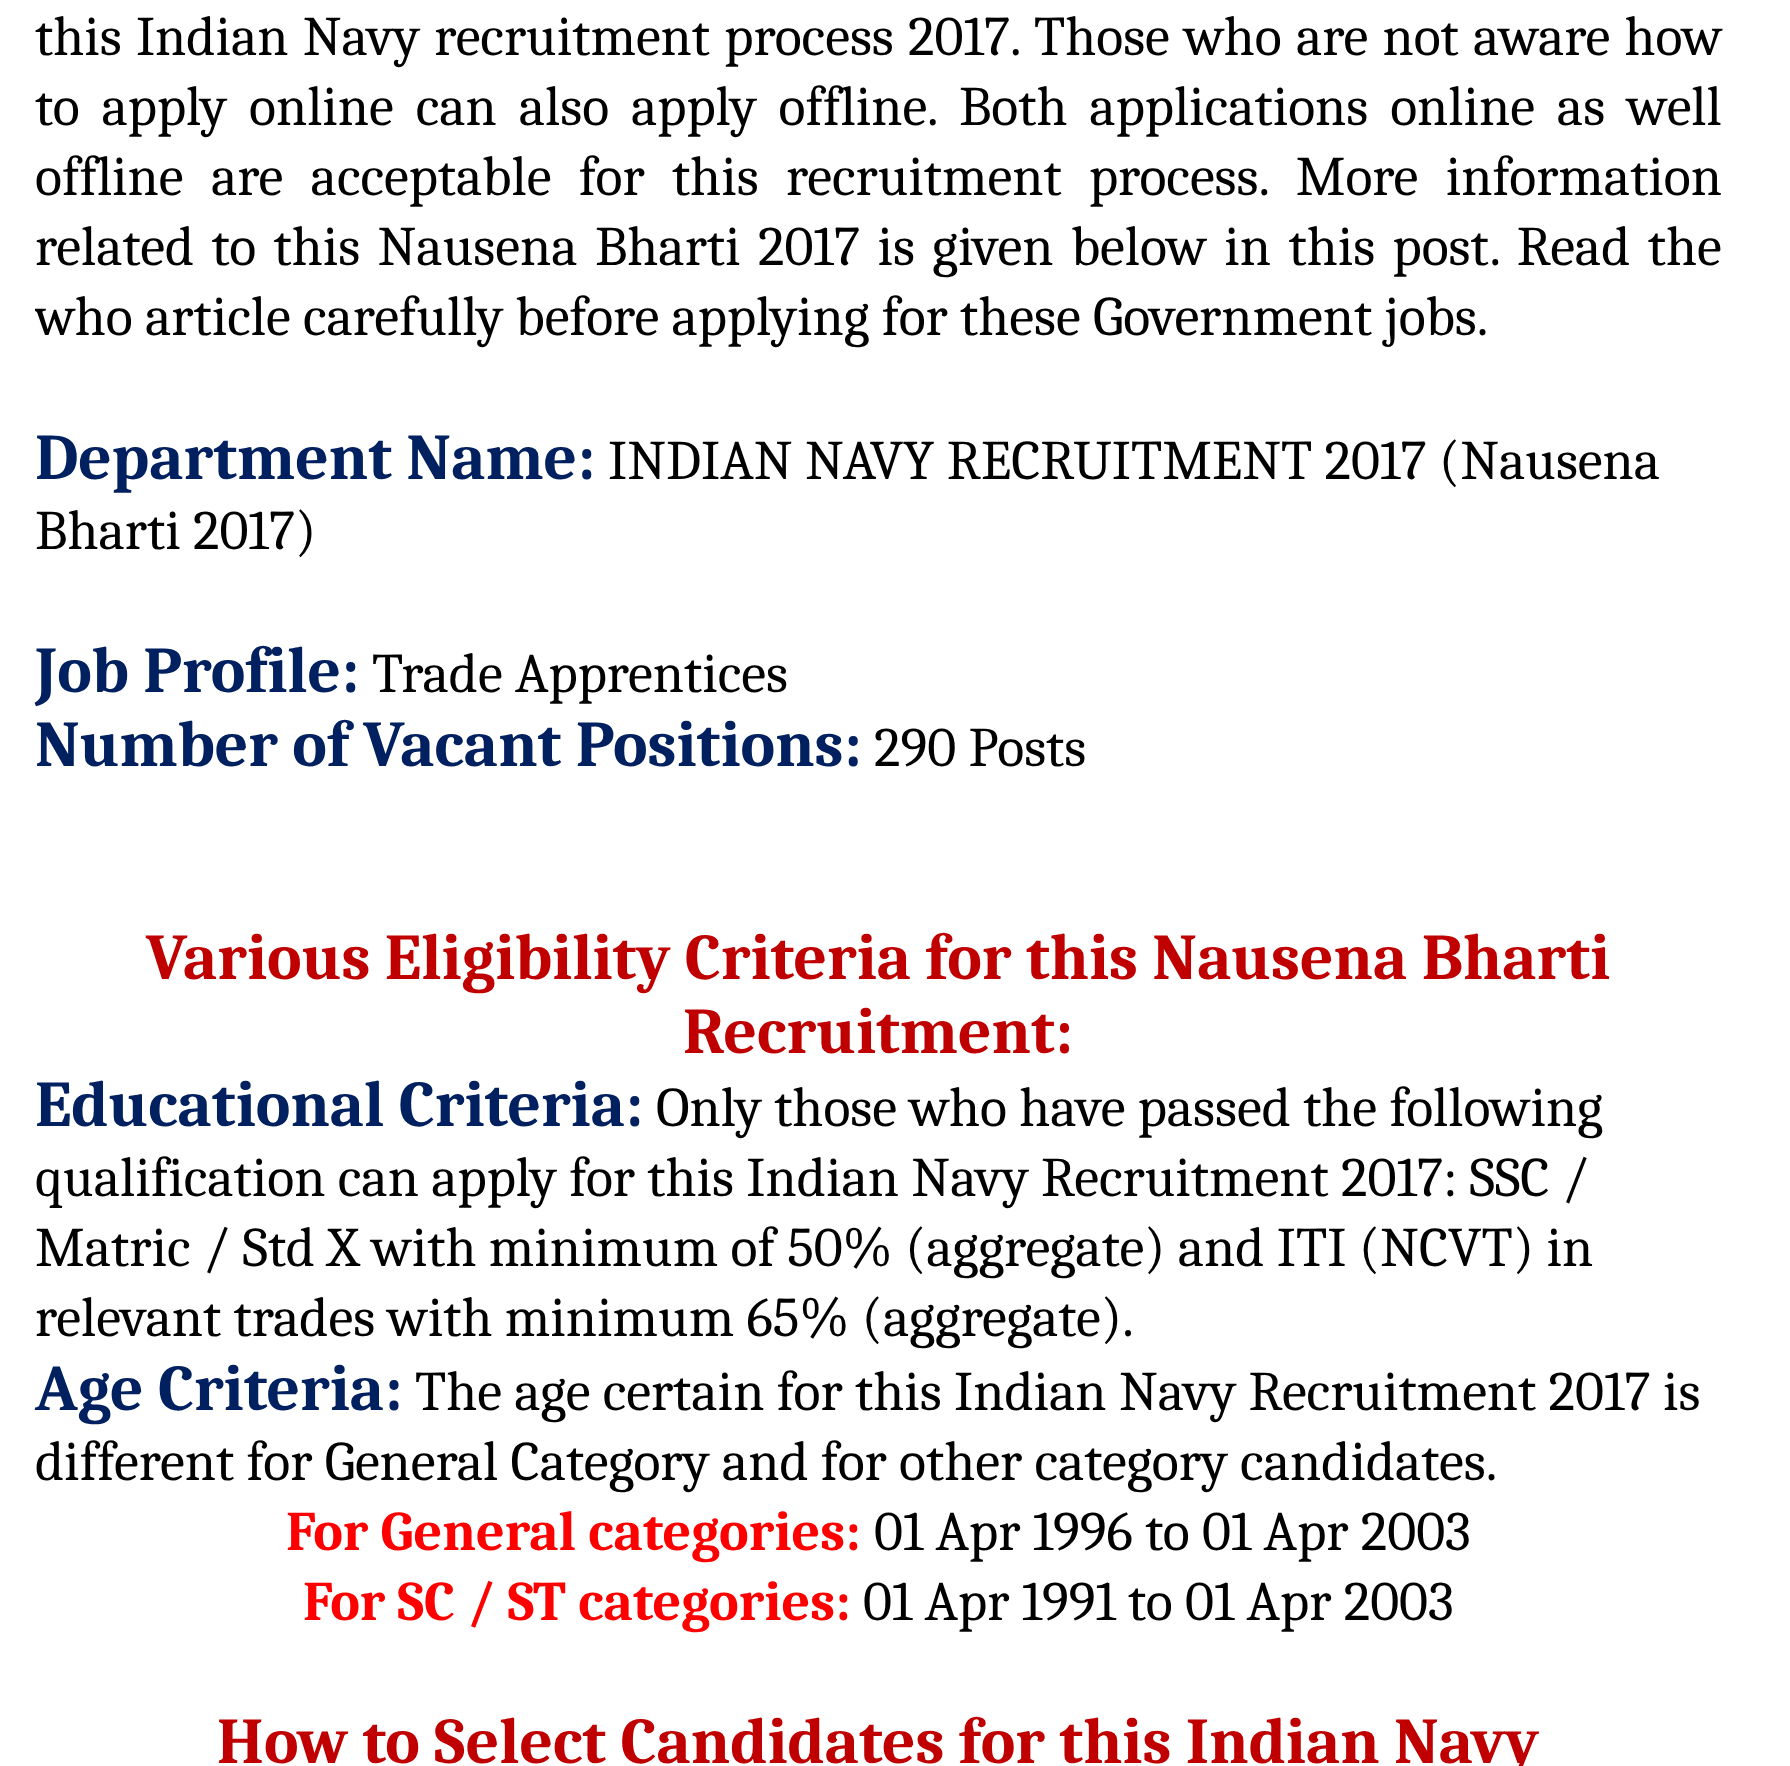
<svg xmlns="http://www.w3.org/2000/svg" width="1790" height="1766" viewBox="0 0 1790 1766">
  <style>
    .t1 { font: 56px Caladea; fill: #000; }
    .t2 { font: bold 65.3px Caladea; fill: #002060; }
    .t3 { font: bold 65.3px Caladea; fill: #c00000; }
    .t4 { font: bold 56px Caladea; fill: #f00; }
  </style>
  <defs>
    <clipPath id="clip1"><rect x="35" y="0" width="1722" height="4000"/></clipPath>
  </defs>
  <rect width="100%" height="100%" fill="#fff"/>
  <text x="35" y="55" word-spacing="1.9" class="t1">this Indian Navy recruitment process 2017. Those who are not aware how</text>
  <text x="35" y="125" word-spacing="9.6" class="t1">to apply online can also apply offline. Both applications online as well</text>
  <text x="35" y="195" word-spacing="15" class="t1">offline are acceptable for this recruitment process. More information</text>
  <text x="35" y="265" word-spacing="5.1" class="t1">related to this Nausena Bharti 2017 is given below in this post. Read the</text>
  <g clip-path="url(#clip1)">
    <text x="35" y="335" class="t1">who article carefully before applying for these Government jobs.</text>
  </g>
  <text x="35" y="479" class="t2">Department Name:</text>
  <text x="608" y="479" class="t1">INDIAN NAVY RECRUITMENT 2017 (Nausena</text>
  <text x="35" y="549" class="t1">Bharti 2017)</text>
  <text x="35" y="692" class="t2">Job Profile:</text>
  <text x="372" y="692" class="t1">Trade Apprentices</text>
  <text x="35" y="766" class="t2">Number of Vacant Positions:</text>
  <text x="874" y="766" class="t1">290 Posts</text>
  <text x="146" y="979" class="t3">Various Eligibility Criteria for this Nausena Bharti</text>
  <text x="683" y="1053" class="t3">Recruitment:</text>
  <text x="35" y="1126" class="t2">Educational Criteria:</text>
  <text x="656" y="1126" class="t1">Only those who have passed the following</text>
  <text x="35" y="1196" class="t1">qualification can apply for this Indian Navy Recruitment 2017: SSC /</text>
  <text x="35" y="1266" class="t1">Matric / Std X with minimum of 50% (aggregate) and ITI (NCVT) in</text>
  <text x="35" y="1336" class="t1">relevant trades with minimum 65% (aggregate).</text>
  <text x="35" y="1410" class="t2">Age Criteria:</text>
  <text x="415" y="1410" class="t1">The age certain for this Indian Navy Recruitment 2017 is</text>
  <text x="35" y="1480" class="t1">different for General Category and for other category candidates.</text>
  <text x="286" y="1550" class="t4">For General categories:</text>
  <text x="874" y="1550" class="t1">01 Apr 1996 to 01 Apr 2003</text>
  <text x="303" y="1620" class="t4">For SC / ST categories:</text>
  <text x="863" y="1620" class="t1">01 Apr 1991 to 01 Apr 2003</text>
  <text x="217" y="1763" class="t3">How to Select Candidates for this Indian Navy</text>
</svg>
